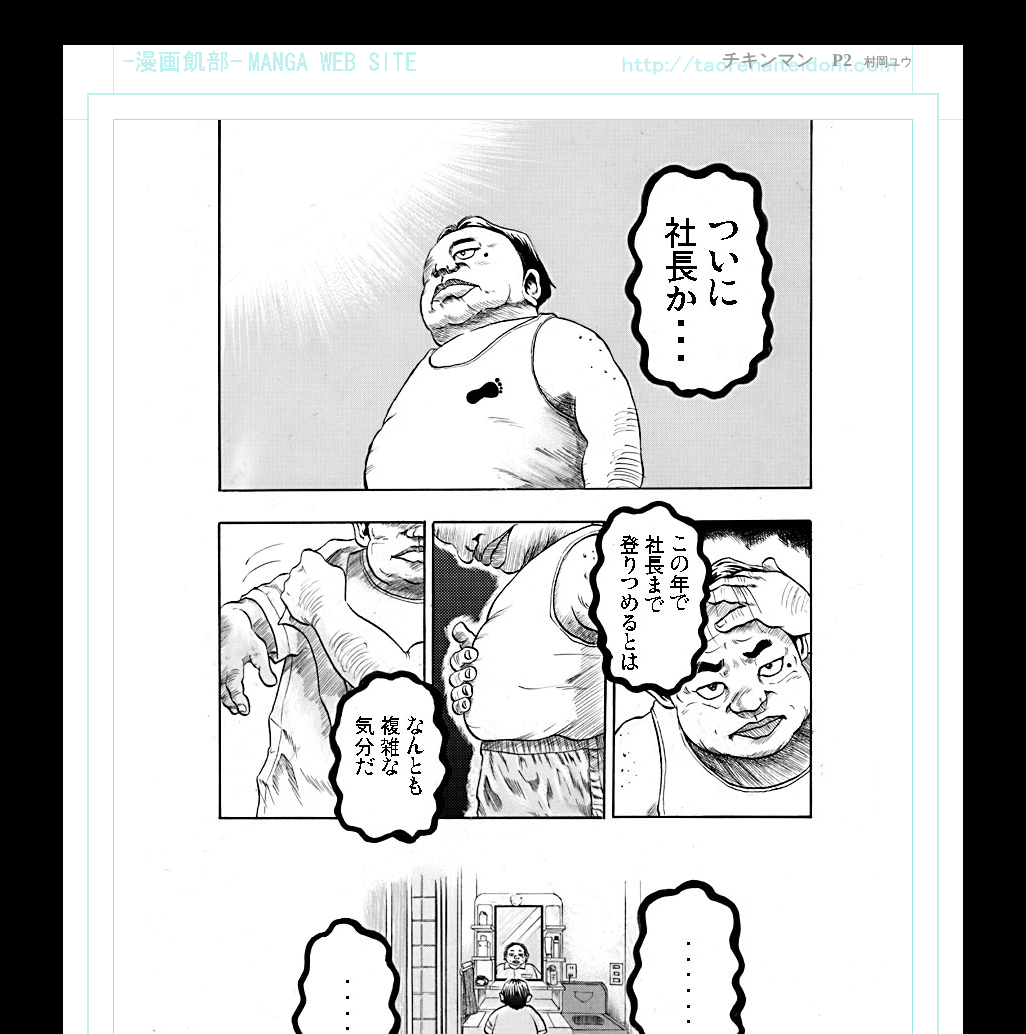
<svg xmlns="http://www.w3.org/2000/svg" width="1026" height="1034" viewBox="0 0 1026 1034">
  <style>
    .t1 { font: bold 18px WenQuanYi Zen Hei; fill: #999; }
    .t2 { font: bold 18px Liberation Serif; fill: #999; }
    .t3 { font: bold 12px WenQuanYi Zen Hei; fill: #999; }
  </style>
  <rect width="100%" height="100%" fill="#000"/>
  <image x="63" y="120" width="900" height="914" href="images/1.png"/>
  <image x="63" y="45" width="900" height="75" href="images/2.png"/>
  <text x="722" y="66" class="t1">チキンマン</text>
  <text x="832" y="66" class="t2">P2</text>
  <text x="864" y="66" class="t3">村岡ユウ</text>
  <image x="147" y="120" width="739" height="914" href="images/3.png"/>
</svg>
